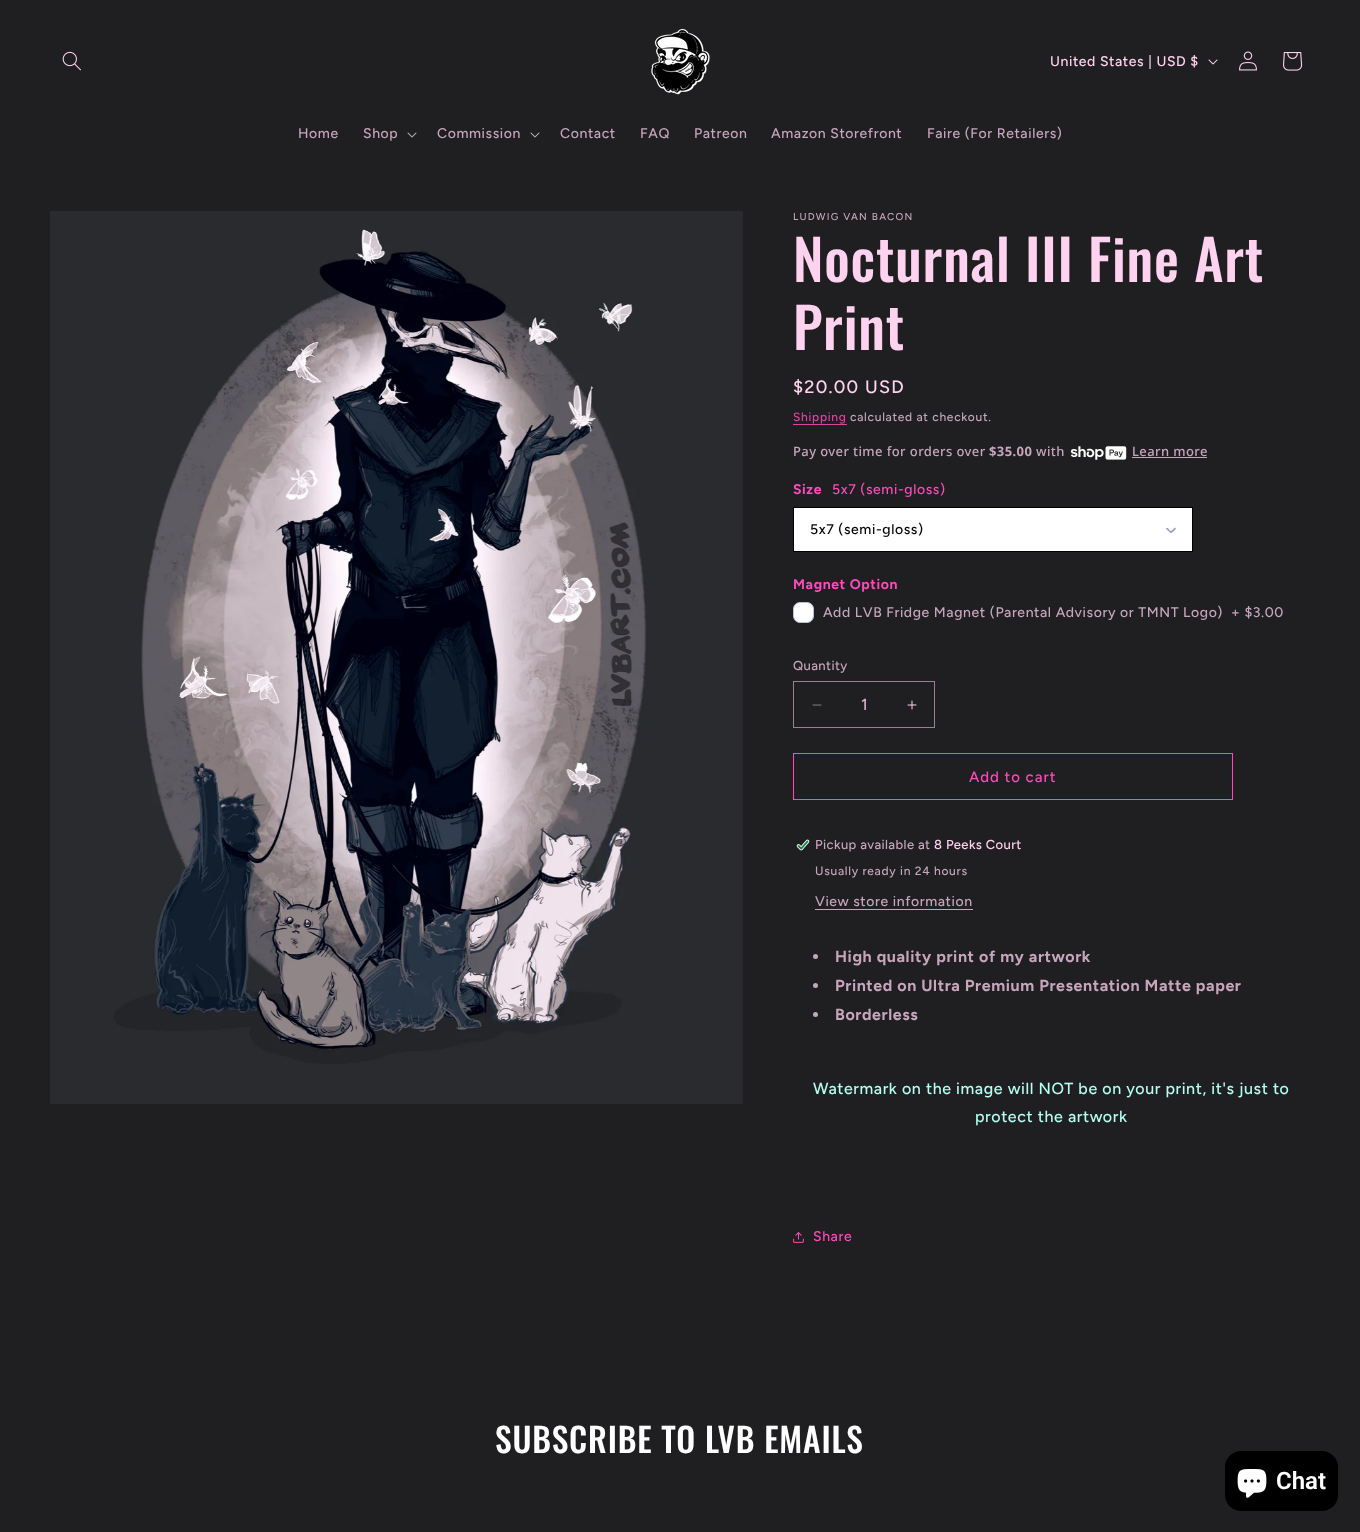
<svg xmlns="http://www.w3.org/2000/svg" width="1360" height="1532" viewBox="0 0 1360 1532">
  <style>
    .t1 { font: 500 14px Figtree; letter-spacing: 0.6px; fill: #ffd2ef; }
    .t2 { font: 500 14px Figtree; letter-spacing: 0.6px; fill: #c7a5bc; }
    .t3 { font: 500 10px Figtree; letter-spacing: 1.25px; fill: #c7a5bc; }
    .t4 { font: 500 56px Oswald; letter-spacing: 0.8px; fill: #ffd2ef; }
    .t5 { font: 500 18px Figtree; letter-spacing: 1.25px; fill: #ffd2ef; }
    .t6 { font: 500 12px Figtree; letter-spacing: 0.7px; fill: #dd43a5; }
    .t7 { font: 500 12px Figtree; letter-spacing: 0.7px; fill: #c7a5bc; }
    .t8 { font: 500 13px Noto Sans; letter-spacing: 0.4px; fill: #c7a5bc; }
    .t9 { font: bold 13px Noto Sans; letter-spacing: 0.4px; fill: #c7a5bc; }
    .t10 { font: bold 14px Figtree; letter-spacing: 0.6px; fill: #ff49bc; }
    .t11 { font: 500 14px Figtree; letter-spacing: 0.6px; fill: #ff49bc; }
    .t12 { font: 500 14px Figtree; letter-spacing: 0.6px; fill: #000; }
    .t13 { font: 500 13px Figtree; letter-spacing: 0.4px; fill: #c7a5bc; }
    .t14 { font: 500 16px Figtree; fill: #ddb7d0; }
    .t15 { font: 500 15px Figtree; letter-spacing: 1px; fill: #ff49bc; }
    .t16 { font: 500 13px Figtree; letter-spacing: 0.4px; fill: #ffd2ef; }
    .t17 { font: bold 16px Figtree; letter-spacing: 0.6px; fill: #c7a5bc; }
    .t18 { font: 500 16px Figtree; letter-spacing: 0.6px; fill: #b4fff2; }
    .t19 { font: 500 33.6px Oswald; letter-spacing: 0.8px; fill: #fff; }
    .t20 { font: 600 24px Roboto; fill: #fff; }
  </style>
  <rect width="100%" height="100%" fill="#1f1f21"/>
  <image x="62" y="51" width="19" height="20" href="images/1.png"/>
  <image x="651" y="28" width="59" height="67" href="images/2.png"/>
  <text x="1050" y="66" class="t1">United States | USD $</text>
  <image x="1208" y="59" width="10" height="6" href="images/3.png"/>
  <image x="1239" y="51" width="18" height="20" href="images/4.png"/>
  <image x="1283" y="52" width="20" height="19" href="images/5.png"/>
  <text x="298" y="138" class="t2">Home</text>
  <text x="363" y="138" class="t2">Shop</text>
  <image x="407" y="132" width="10" height="6" href="images/6.png"/>
  <text x="437" y="138" class="t2">Commission</text>
  <image x="530" y="132" width="10" height="6" href="images/6.png"/>
  <text x="560" y="138" class="t2">Contact</text>
  <text x="640" y="138" class="t2">FAQ</text>
  <text x="694" y="138" class="t2">Patreon</text>
  <text x="771" y="138" class="t2">Amazon Storefront</text>
  <text x="927" y="138" class="t2">Faire (For Retailers)</text>
  <image x="50" y="211" width="693" height="893" href="images/7.png"/>
  <text x="793" y="220" class="t3">LUDWIG VAN BACON</text>
  <text x="793" y="282" class="t4">Nocturnal III Fine Art</text>
  <text x="793" y="350" class="t4">Print</text>
  <text x="793" y="393" class="t5">$20.00 USD</text>
  <text x="793" y="421" class="t6">Shipping</text>
  <rect x="793" y="424" width="54" height="1" fill="#dd43a5"/>
  <text x="850" y="421" class="t7">calculated at checkout.</text>
  <text x="793" y="456" class="t8">Pay over time for orders over</text>
  <text x="989" y="456" class="t9">$35.00</text>
  <text x="1036" y="456" class="t8">with</text>
  <image x="1070" y="446" width="57" height="14" href="images/8.png"/>
  <text x="1132" y="456" class="t8">Learn more</text>
  <rect x="1132" y="457" width="75" height="1" fill="#c7a5bc"/>
  <text x="793" y="494" class="t10">Size</text>
  <text x="832" y="494" class="t11">5x7 (semi-gloss)</text>
  <rect x="793.5" y="507.5" width="399" height="44" fill="#fff" stroke="#000"/>
  <text x="810" y="534" class="t12">5x7 (semi-gloss)</text>
  <path d="M1168 528L1169.5 530C1170 530.5 1172.5 532 1171.5 533H1170.5L1168.5 531C1168 530.5 1165 528.5 1166.5 528Z" fill="#99a3ba"/>
  <path d="M1170.5 531.5L1174.5 528C1175 527.5 1176 528 1176 528.5C1176 529 1170.5 535 1170 532.5Z" fill="#99a3ba"/>
  <text x="793" y="589" class="t10">Magnet Option</text>
  <rect x="793.5" y="602.5" width="20" height="20" rx="6.5" fill="#fff" stroke="#bbc1e1"/>
  <text x="823" y="617" class="t2">Add LVB Fridge Magnet (Parental Advisory or TMNT Logo)</text>
  <text x="1231" y="617" class="t2">+ $3.00</text>
  <text x="793" y="670" class="t13">Quantity</text>
  <image x="812" y="704" width="10" height="2" href="images/9.png"/>
  <image x="907" y="700" width="10" height="10" href="images/10.png"/>
  <rect x="793.5" y="681.5" width="141" height="46" fill="none" stroke="#9a8192"/>
  <text x="861" y="710" class="t14">1</text>
  <rect x="793.5" y="753.5" width="439" height="46" fill="none" stroke="#ff49bc"/>
  <text x="969" y="782" class="t15">Add to cart</text>
  <image x="796" y="839" width="14" height="12" href="images/11.png"/>
  <text x="815" y="849" class="t13">Pickup available at</text>
  <text x="934" y="849" class="t16">8 Peeks Court</text>
  <text x="815" y="875" class="t7">Usually ready in 24 hours</text>
  <text x="815" y="906" class="t2">View store information</text>
  <rect x="815" y="909" width="158" height="1" fill="#c7a5bc"/>
  <circle cx="815.5" cy="956.5" r="2.5" fill="#c7a5bc"/>
  <text x="835" y="962" class="t17">High quality print of my artwork</text>
  <circle cx="815.5" cy="985.5" r="2.5" fill="#c7a5bc"/>
  <text x="835" y="991" class="t17">Printed on Ultra Premium Presentation Matte paper</text>
  <circle cx="815.5" cy="1014.5" r="2.5" fill="#c7a5bc"/>
  <text x="835" y="1020" class="t17">Borderless</text>
  <text x="813" y="1094" class="t18">Watermark on the image will NOT be on your print, it's just to</text>
  <text x="975" y="1122" class="t18">protect the artwork</text>
  <image x="793" y="1232" width="11" height="11" href="images/12.png"/>
  <text x="813" y="1241" class="t11">Share</text>
  <text x="495" y="1453" class="t19">SUBSCRIBE TO LVB EMAILS</text>
  <rect x="1225" y="1451" width="113" height="60" rx="16" fill="#000"/>
  <image x="1237" y="1469" width="30" height="29" href="images/13.png"/>
  <text x="1276" y="1489" class="t20">Chat</text>
</svg>
